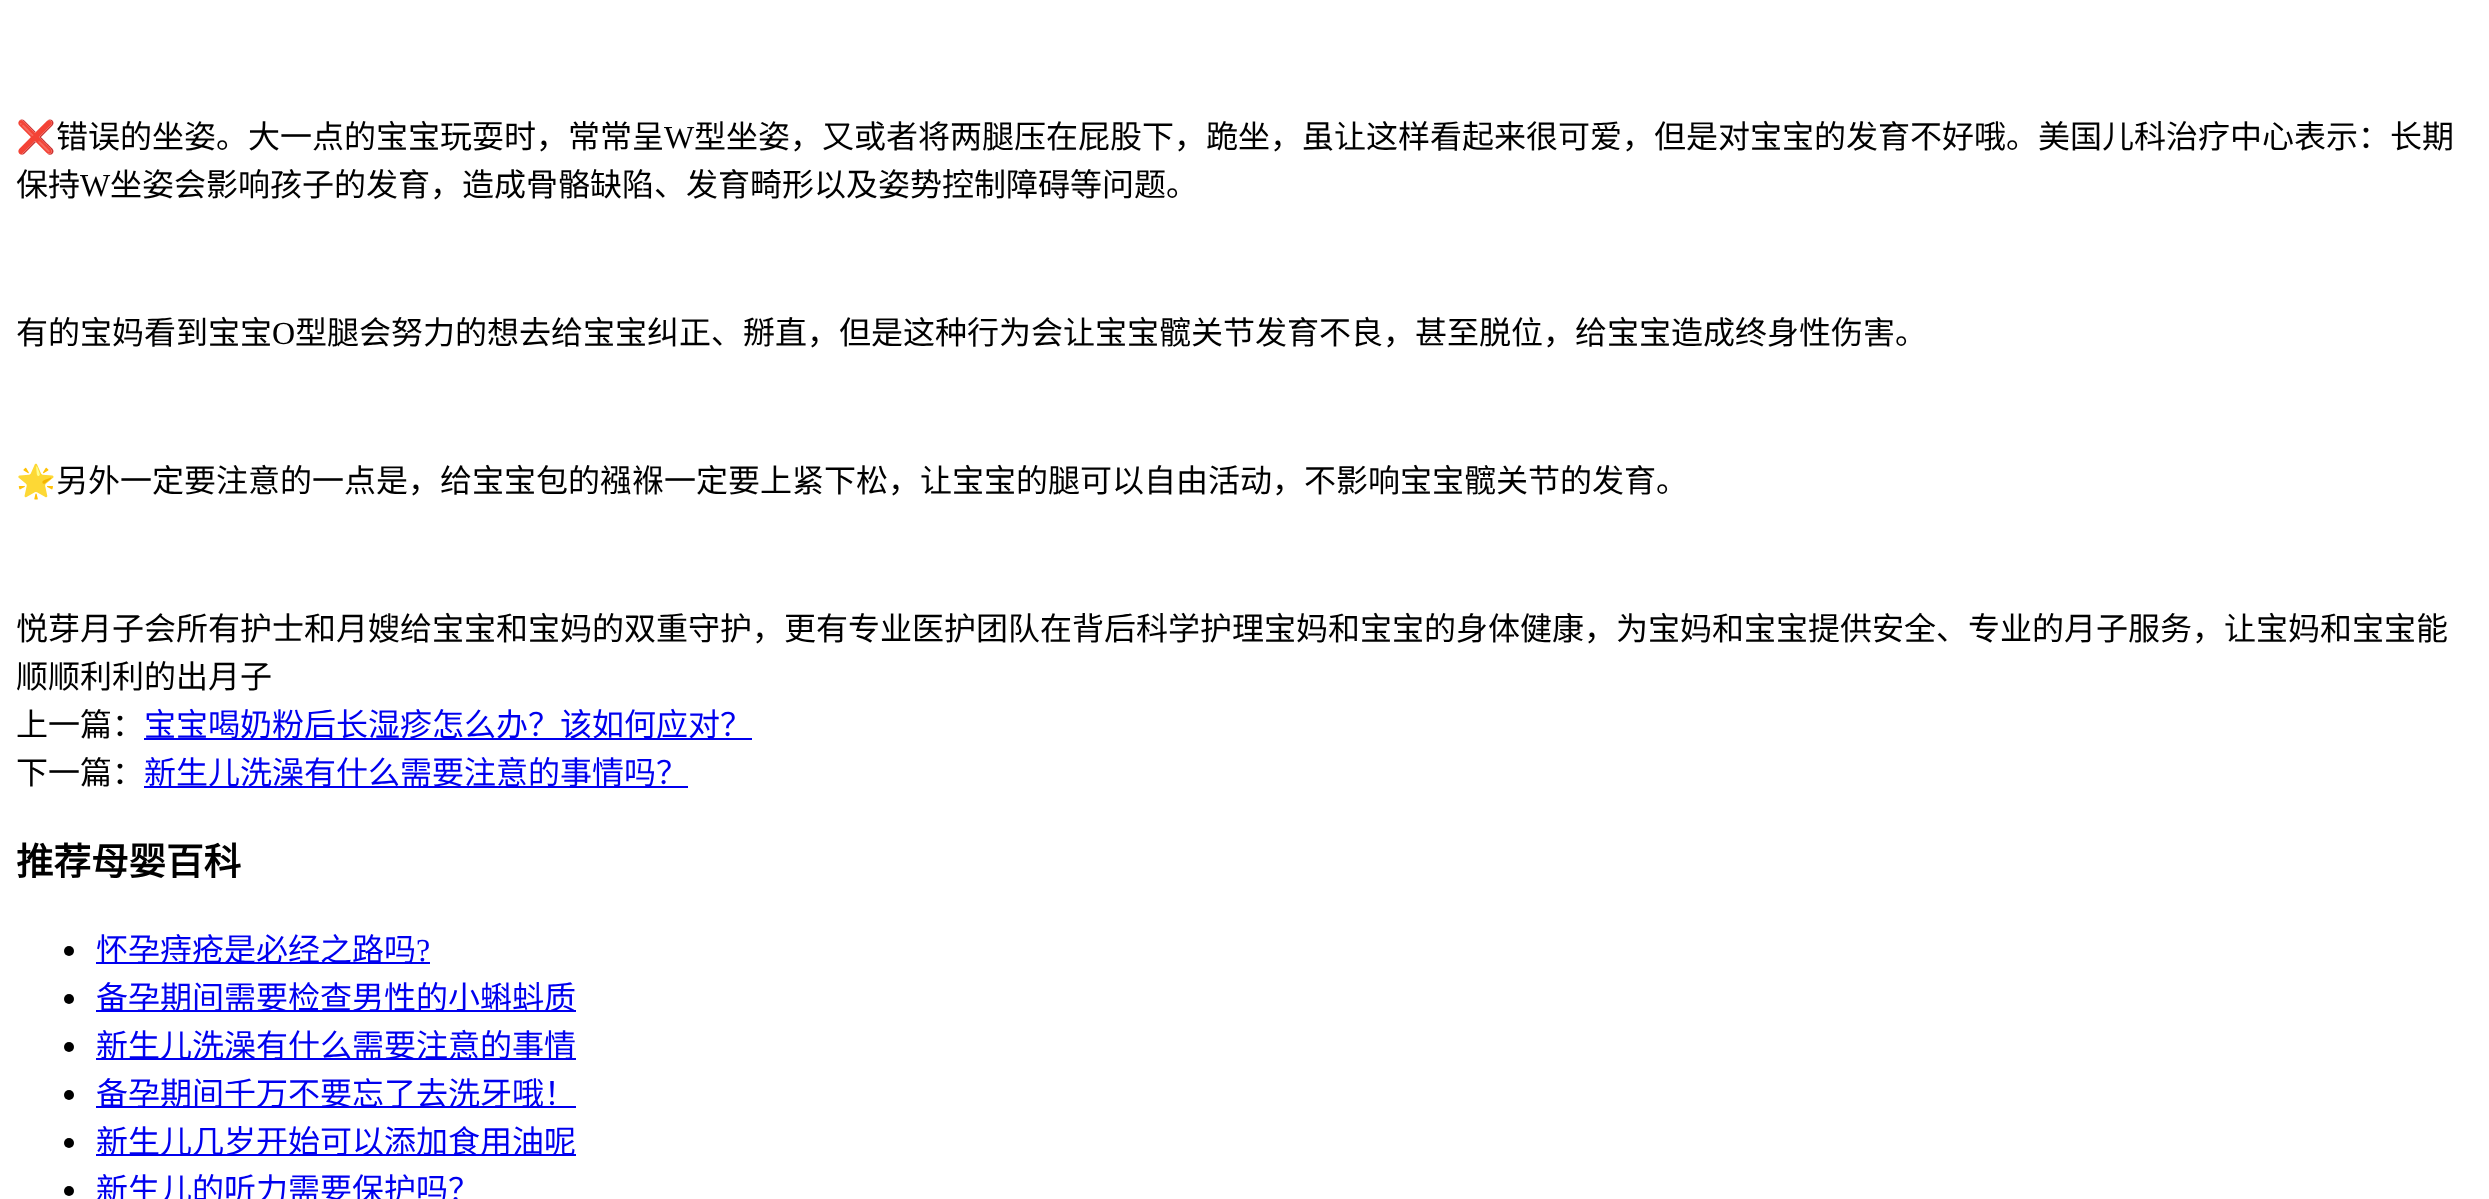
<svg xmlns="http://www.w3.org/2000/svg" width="2489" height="1199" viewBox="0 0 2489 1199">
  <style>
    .t1 { font: 32px Noto Color Emoji; fill: #000; }
    .t2 { font: 32px Noto Sans CJK SC; fill: #000; }
    .t3 { font: 32px Liberation Serif; fill: #000; }
    .t4 { font: 32px Noto Sans CJK SC; fill: #00e; }
    .t5 { font: bold 37.5px Noto Sans CJK SC; fill: #000; }
    .t6 { font: 32px Liberation Serif; fill: #00e; }
  </style>
  <rect width="100%" height="100%" fill="#fff"/>
  <text x="16" y="148" class="t1">❌</text>
  <text x="56" y="148" class="t2">错误的坐姿。大一点的宝宝玩耍时，常常呈</text>
  <text x="664" y="148" class="t3">W</text>
  <text x="694" y="148" class="t2">型坐姿，又或者将两腿压在屁股下，跪坐，虽让这样看起来很可爱，但是对宝宝的发育不好哦。美国儿科治疗中心表示：长期</text>
  <text x="16" y="196" class="t2">保持</text>
  <text x="80" y="196" class="t3">W</text>
  <text x="110" y="196" class="t2">坐姿会影响孩子的发育，造成骨骼缺陷、发育畸形以及姿势控制障碍等问题。</text>
  <text x="16" y="344" class="t2">有的宝妈看到宝宝</text>
  <text x="272" y="344" class="t3">O</text>
  <text x="295" y="344" class="t2">型腿会努力的想去给宝宝纠正、掰直，但是这种行为会让宝宝髋关节发育不良，甚至脱位，给宝宝造成终身性伤害。</text>
  <text x="16" y="492" class="t1">🌟</text>
  <text x="56" y="492" class="t2">另外一定要注意的一点是，给宝宝包的襁褓一定要上紧下松，让宝宝的腿可以自由活动，不影响宝宝髋关节的发育。</text>
  <text x="16" y="640" class="t2">悦芽月子会所有护士和月嫂给宝宝和宝妈的双重守护，更有专业医护团队在背后科学护理宝妈和宝宝的身体健康，为宝妈和宝宝提供安全、专业的月子服务，让宝妈和宝宝能</text>
  <text x="16" y="688" class="t2">顺顺利利的出月子</text>
  <text x="16" y="736" class="t2">上一篇：</text>
  <rect x="144" y="738" width="608" height="2" fill="#00e"/>
  <text x="144" y="736" class="t4">宝宝喝奶粉后长湿疹怎么办？该如何应对？</text>
  <text x="16" y="784" class="t2">下一篇：</text>
  <rect x="144" y="786" width="544" height="2" fill="#00e"/>
  <text x="144" y="784" class="t4">新生儿洗澡有什么需要注意的事情吗？</text>
  <text x="16" y="875" class="t5">推荐母婴百科</text>
  <circle cx="69" cy="951" r="5" fill="#000"/>
  <rect x="96" y="962" width="334" height="2" fill="#00e"/>
  <text x="96" y="961" class="t4">怀孕痔疮是必经之路吗</text>
  <text x="416" y="961" class="t6">?</text>
  <circle cx="69" cy="999" r="5" fill="#000"/>
  <rect x="96" y="1010" width="480" height="2" fill="#00e"/>
  <text x="96" y="1009" class="t4">备孕期间需要检查男性的小蝌蚪质</text>
  <circle cx="69" cy="1047" r="5" fill="#000"/>
  <rect x="96" y="1058" width="480" height="2" fill="#00e"/>
  <text x="96" y="1057" class="t4">新生儿洗澡有什么需要注意的事情</text>
  <circle cx="69" cy="1095" r="5" fill="#000"/>
  <rect x="96" y="1106" width="480" height="2" fill="#00e"/>
  <text x="96" y="1105" class="t4">备孕期间千万不要忘了去洗牙哦！</text>
  <circle cx="69" cy="1143" r="5" fill="#000"/>
  <rect x="96" y="1154" width="480" height="2" fill="#00e"/>
  <text x="96" y="1153" class="t4">新生儿几岁开始可以添加食用油呢</text>
  <circle cx="69" cy="1191" r="5" fill="#000"/>
  <text x="96" y="1201" class="t4">新生儿的听力需要保护吗？</text>
</svg>
